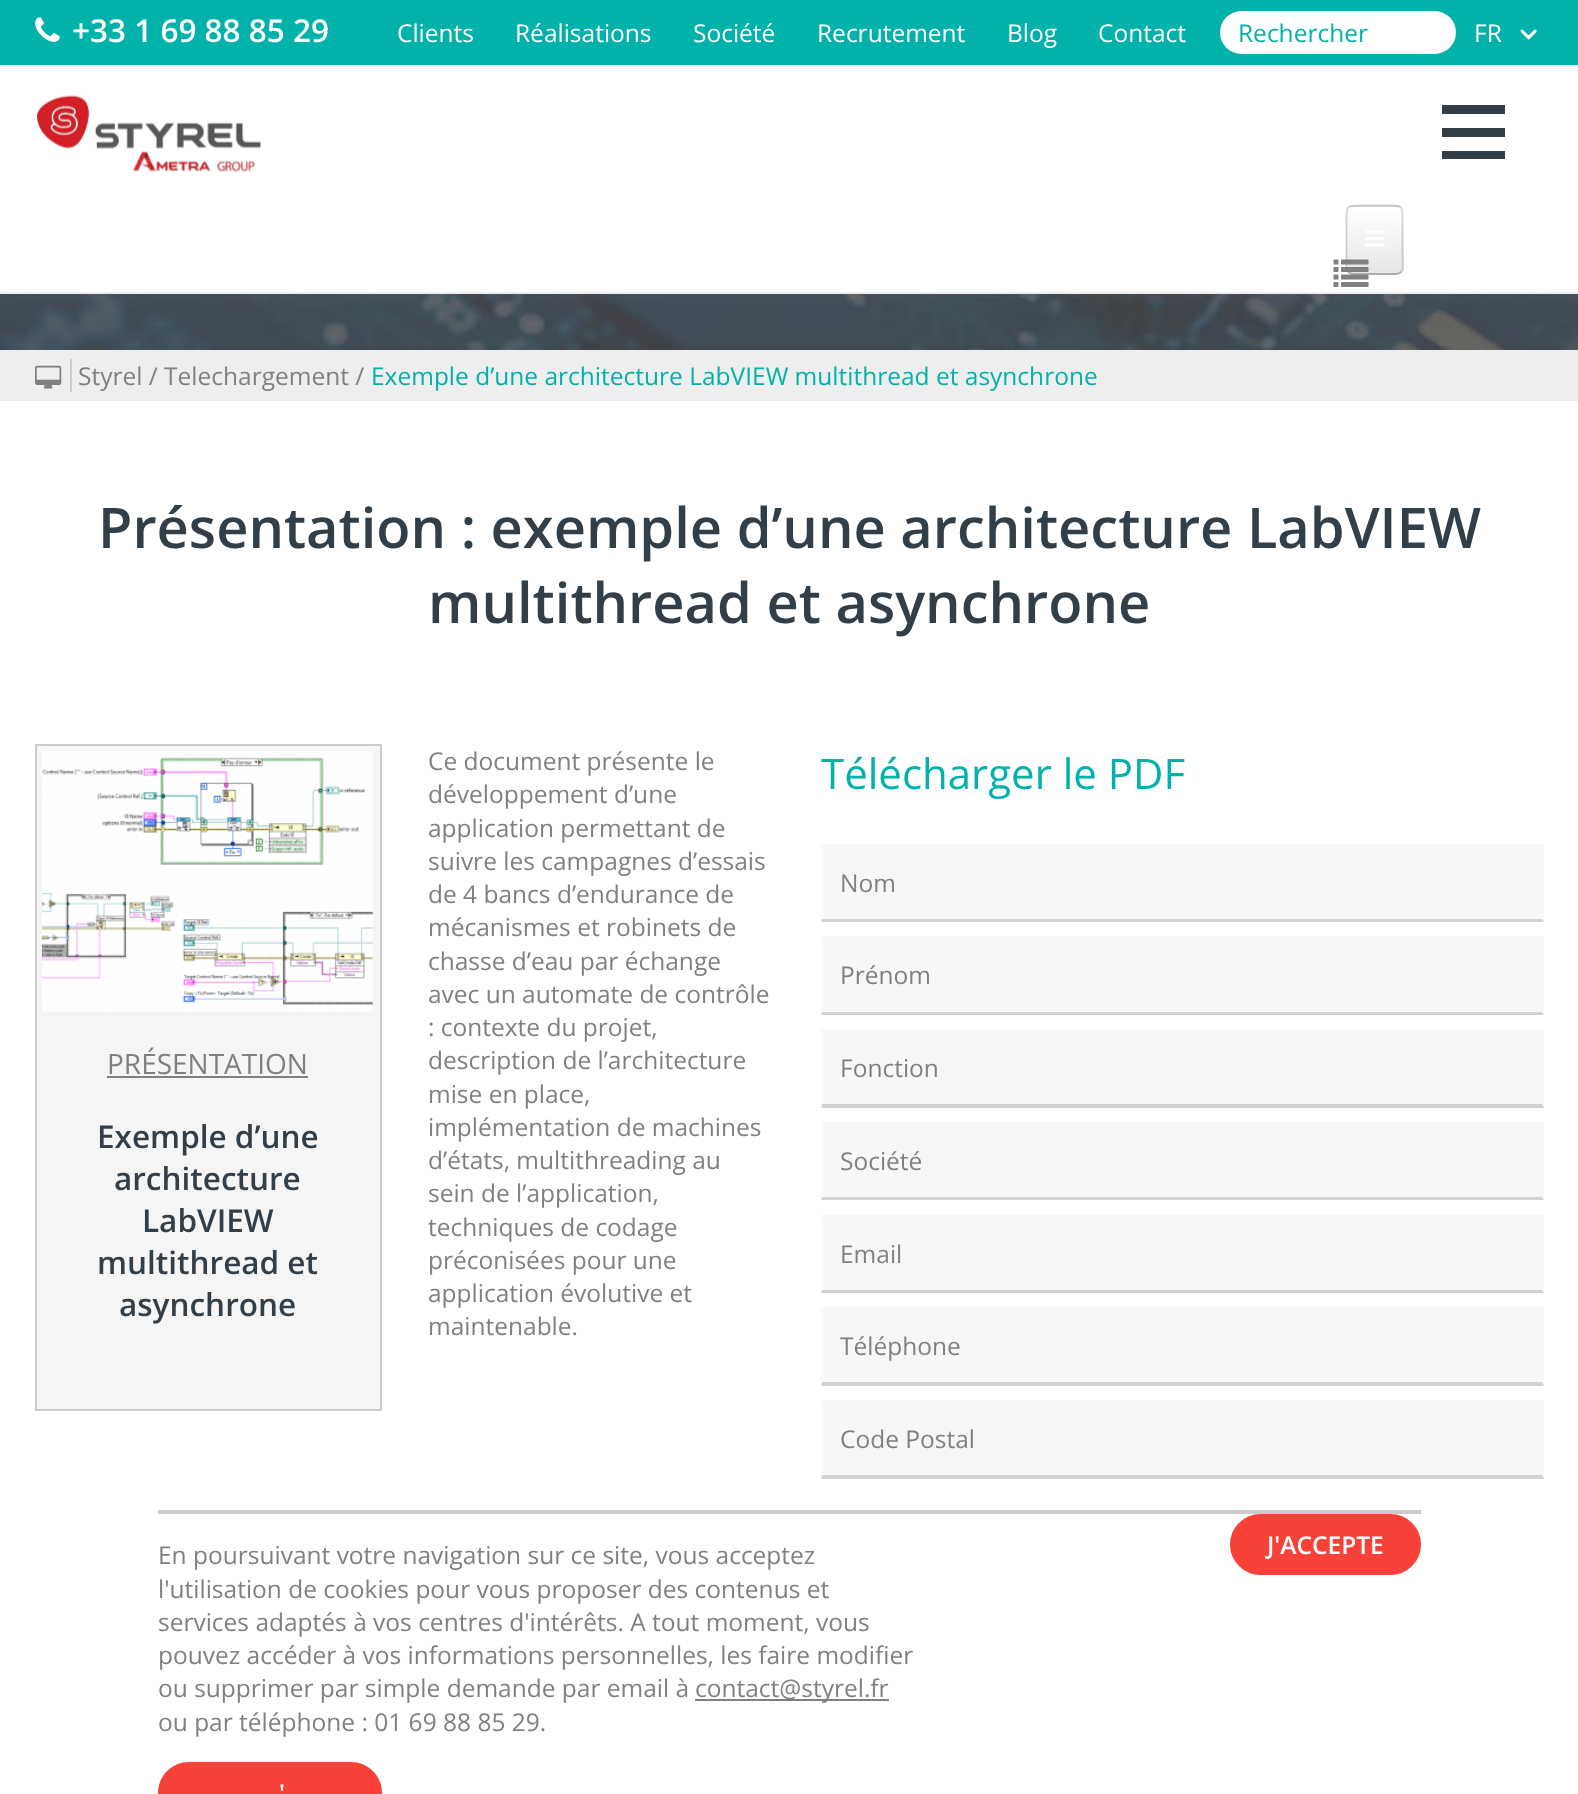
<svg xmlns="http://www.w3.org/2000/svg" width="1578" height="1794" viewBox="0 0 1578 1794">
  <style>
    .t1 { font: 600 31.5px Open Sans; fill: #fff; }
    .t2 { font: 24.5px Open Sans; fill: #fff; }
    .t3 { font: 24.5px Open Sans; fill: #00b2a9; }
    .t4 { font: 24.5px Open Sans; fill: #7e8082; }
    .t5 { font: 600 56px Open Sans; fill: #333f48; }
    .t6 { font: 28px Open Sans; fill: #7e8082; }
    .t7 { font: 600 31.5px Open Sans; fill: #333f48; }
    .t8 { font: 42px Open Sans; fill: #00b2a9; }
    .t9 { font: 600 24.5px Open Sans; fill: #fff; }
  </style>
  <defs>
    <clipPath id="clip1"><rect x="1346" y="205" width="58" height="70" rx="7"/></clipPath>
    <linearGradient id="g1" gradientUnits="userSpaceOnUse" x1="1375" y1="207" x2="1375" y2="273"><stop offset="0" stop-color="#fff"/><stop offset="1" stop-color="#e6e6e6"/></linearGradient>
  </defs>
  <rect width="100%" height="100%" fill="#fff"/>
  <image x="0" y="294" width="1578" height="56" href="images/6.png"/>
  <rect x="0" y="0" width="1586" height="301" fill="#80808014" filter="blur(4.5px)"/>
  <rect x="0" y="0" width="1578" height="65" fill="#00b2a9"/>
  <image x="35" y="17" width="25" height="25" href="images/1.png"/>
  <text x="72" y="42" class="t1">+33 1 69 88 85 29</text>
  <text x="397" y="42" class="t2">Clients</text>
  <text x="515" y="42" class="t2">Réalisations</text>
  <text x="693" y="42" class="t2">Société</text>
  <text x="817" y="42" class="t2">Recrutement</text>
  <text x="1007" y="42" class="t2">Blog</text>
  <text x="1098" y="42" class="t2">Contact</text>
  <rect x="1220" y="11" width="236" height="43" rx="21.5" fill="#fff"/>
  <text x="1238" y="42" class="t3">Rechercher</text>
  <image x="1520" y="29" width="17" height="11" href="images/2.png"/>
  <text x="1474" y="42" class="t2">FR</text>
  <rect x="0" y="65" width="1578" height="227" fill="#fff"/>
  <rect x="0" y="292" width="1578" height="2" fill="#eee"/>
  <image x="36" y="95" width="226" height="77" href="images/3.png"/>
  <rect x="1442" y="128" width="63" height="9" fill="#333f48"/>
  <rect x="1442" y="105" width="63" height="9" fill="#333f48"/>
  <rect x="1442" y="151" width="63" height="8" fill="#333f48"/>
  <rect x="1346" y="205" width="58" height="70" rx="7" fill="#e8e8e8"/>
  <g clip-path="url(#clip1)">
    <rect x="1346" y="207" width="58" height="66" fill="url(#g1)"/>
  </g>
  <path d="M1401 272C1399.5 273 1398 274 1396.5 274H1353C1351 274 1349.5 273 1348.5 272" fill="none" stroke="#00000040" stroke-width="1.8"/>
  <path d="M1348.5 272C1345 269 1346.5 261.5 1346.5 258.5V221C1346.5 206.5 1345.5 205.5 1360 205.5H1389C1403.5 205.5 1402.5 206.5 1402.5 221V258.5C1402.5 261.5 1404 269 1401 272" fill="none" stroke="#00000026" stroke-width="1.8"/>
  <image x="1365" y="230" width="20" height="17" href="images/4.png"/>
  <image x="1333" y="259" width="36" height="28" href="images/5.png"/>
  <rect x="0" y="350" width="1578" height="51" fill="#eee"/>
  <image x="35" y="365" width="27" height="24" href="images/7.png"/>
  <rect x="70" y="359" width="2" height="33" fill="#ccc"/>
  <text x="78" y="385" class="t4">Styrel / Telechargement /</text>
  <text x="371" y="385" class="t3">Exemple d’une architecture LabVIEW multithread et asynchrone</text>
  <text x="98" y="548" class="t5">Présentation : exemple d’une architecture LabVIEW</text>
  <text x="428" y="623" class="t5">multithread et asynchrone</text>
  <rect x="36" y="745" width="345" height="665" fill="#f5f5f5" stroke="#ccc" stroke-width="2"/>
  <image x="42" y="751" width="331" height="261" href="images/8.png"/>
  <text x="107" y="1074" class="t6">PRÉSENTATION</text>
  <rect x="107" y="1076" width="201" height="2" fill="#7e8082"/>
  <text x="97" y="1148" class="t7">Exemple d’une</text>
  <text x="114" y="1190" class="t7">architecture</text>
  <text x="142" y="1232" class="t7">LabVIEW</text>
  <text x="97" y="1274" class="t7">multithread et</text>
  <text x="119" y="1316" class="t7">asynchrone</text>
  <text x="428" y="770" class="t4">Ce document présente le</text>
  <text x="428" y="803" class="t4">développement d’une</text>
  <text x="428" y="837" class="t4">application permettant de</text>
  <text x="428" y="870" class="t4">suivre les campagnes d’essais</text>
  <text x="428" y="903" class="t4">de 4 bancs d’endurance de</text>
  <text x="428" y="936" class="t4">mécanismes et robinets de</text>
  <text x="428" y="970" class="t4">chasse d’eau par échange</text>
  <text x="428" y="1003" class="t4">avec un automate de contrôle</text>
  <text x="428" y="1036" class="t4">: contexte du projet,</text>
  <text x="428" y="1069" class="t4">description de l’architecture</text>
  <text x="428" y="1103" class="t4">mise en place,</text>
  <text x="428" y="1136" class="t4">implémentation de machines</text>
  <text x="428" y="1169" class="t4">d’états, multithreading au</text>
  <text x="428" y="1202" class="t4">sein de l’application,</text>
  <text x="428" y="1236" class="t4">techniques de codage</text>
  <text x="428" y="1269" class="t4">préconisées pour une</text>
  <text x="428" y="1302" class="t4">application évolutive et</text>
  <text x="428" y="1335" class="t4">maintenable.</text>
  <text x="821" y="789" class="t8">Télécharger le PDF</text>
  <rect x="823" y="846" width="719" height="73" fill="#f7f7f7"/>
  <rect x="821" y="844" width="723" height="2" fill="#f7f7f7"/>
  <path d="M1544 844V922L1542 919V845Z" fill="#f7f7f7"/>
  <path d="M1544 922H821L822 919H1542Z" fill="#d2d2d2"/>
  <path d="M821 922V844L822 845V919Z" fill="#f7f7f7"/>
  <text x="840" y="892" class="t4">Nom</text>
  <rect x="823" y="938" width="719" height="74" fill="#f7f7f7"/>
  <rect x="821" y="936" width="723" height="2" fill="#f7f7f7"/>
  <path d="M1544 936V1015L1542 1012V938Z" fill="#f7f7f7"/>
  <path d="M1544 1015H821L822 1012H1542Z" fill="#d2d2d2"/>
  <path d="M821 1015V936L822 938V1012Z" fill="#f7f7f7"/>
  <text x="840" y="984" class="t4">Prénom</text>
  <rect x="823" y="1031" width="719" height="73" fill="#f7f7f7"/>
  <rect x="821" y="1029" width="723" height="2" fill="#f7f7f7"/>
  <path d="M1544 1029V1108L1542 1104V1031Z" fill="#f7f7f7"/>
  <path d="M1544 1108H821L822 1104H1542Z" fill="#d2d2d2"/>
  <path d="M821 1108V1029L822 1031V1104Z" fill="#f7f7f7"/>
  <text x="840" y="1077" class="t4">Fonction</text>
  <rect x="823" y="1124" width="719" height="73" fill="#f7f7f7"/>
  <rect x="821" y="1122" width="723" height="2" fill="#f7f7f7"/>
  <path d="M1544 1122V1200L1542 1197V1124Z" fill="#f7f7f7"/>
  <path d="M1544 1200H821L822 1197H1542Z" fill="#d2d2d2"/>
  <path d="M821 1200V1122L822 1124V1197Z" fill="#f7f7f7"/>
  <text x="840" y="1170" class="t4">Société</text>
  <rect x="823" y="1217" width="719" height="73" fill="#f7f7f7"/>
  <rect x="821" y="1215" width="723" height="2" fill="#f7f7f7"/>
  <path d="M1544 1214V1293L1542 1290V1216Z" fill="#f7f7f7"/>
  <path d="M1544 1293H821L822 1290H1542Z" fill="#d2d2d2"/>
  <path d="M821 1293V1214L822 1216V1290Z" fill="#f7f7f7"/>
  <text x="840" y="1263" class="t4">Email</text>
  <rect x="823" y="1309" width="719" height="73" fill="#f7f7f7"/>
  <rect x="821" y="1307" width="723" height="2" fill="#f7f7f7"/>
  <path d="M1544 1307V1386L1542 1382V1309Z" fill="#f7f7f7"/>
  <path d="M1544 1386H821L822 1382H1542Z" fill="#d2d2d2"/>
  <path d="M821 1386V1307L822 1309V1382Z" fill="#f7f7f7"/>
  <text x="840" y="1355" class="t4">Téléphone</text>
  <rect x="823" y="1402" width="719" height="73" fill="#f7f7f7"/>
  <rect x="821" y="1400" width="723" height="2" fill="#f7f7f7"/>
  <path d="M1544 1400V1479L1542 1475V1402Z" fill="#f7f7f7"/>
  <path d="M1544 1479H821L822 1475H1542Z" fill="#d2d2d2"/>
  <path d="M821 1479V1400L822 1402V1475Z" fill="#f7f7f7"/>
  <text x="840" y="1448" class="t4">Code Postal</text>
  <rect x="158" y="1510" width="1263" height="4" fill="#ccc"/>
  <text x="158" y="1564" class="t4">En poursuivant votre navigation sur ce site, vous acceptez</text>
  <text x="158" y="1598" class="t4">l'utilisation de cookies pour vous proposer des contenus et</text>
  <text x="158" y="1631" class="t4">services adaptés à vos centres d'intérêts. A tout moment, vous</text>
  <text x="158" y="1664" class="t4">pouvez accéder à vos informations personnelles, les faire modifier</text>
  <text x="158" y="1697" class="t4">ou supprimer par simple demande par email à</text>
  <rect x="695" y="1699" width="194" height="2" fill="#7e8082"/>
  <text x="695" y="1697" class="t4">contact@styrel.fr</text>
  <text x="158" y="1731" class="t4">ou par téléphone : 01 69 88 85 29.</text>
  <rect x="159" y="1763" width="222" height="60" rx="30" fill="#f84239" stroke="#f84239" stroke-width="2"/>
  <text x="279" y="1802" class="t9">'</text>
  <rect x="1231" y="1515" width="189" height="59" rx="29.5" fill="#f84239" stroke="#f84239" stroke-width="2"/>
  <text x="1267" y="1554" class="t9">J'ACCEPTE</text>
</svg>
